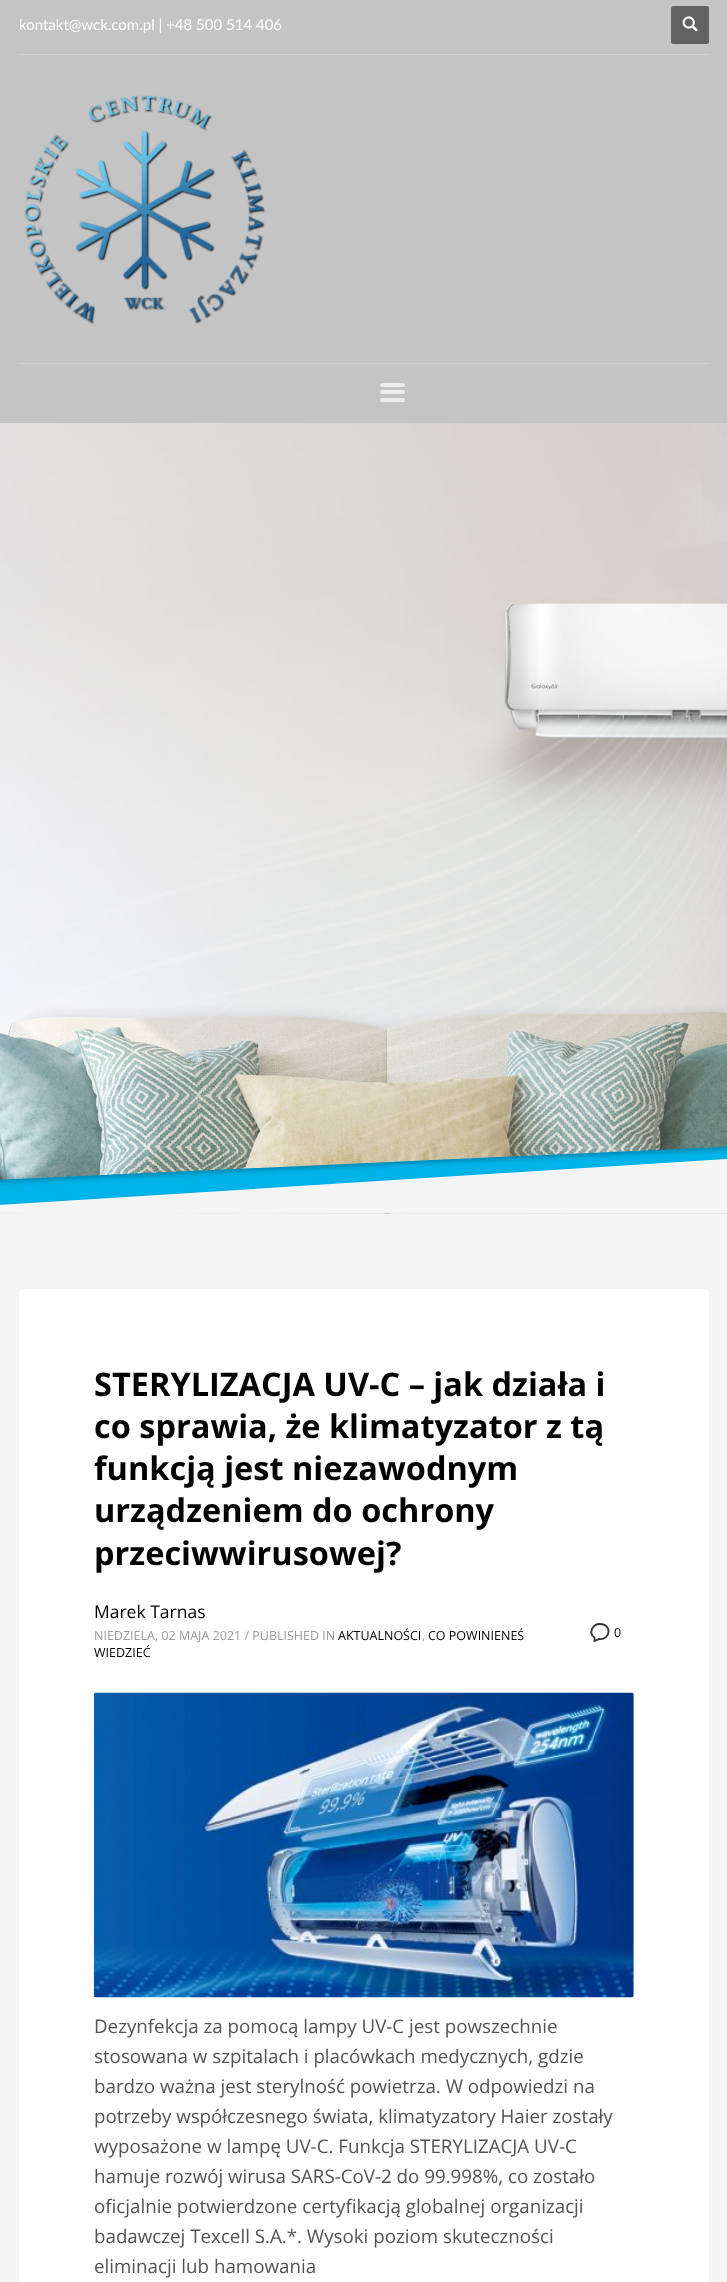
<svg xmlns="http://www.w3.org/2000/svg" width="727" height="2282" viewBox="0 0 727 2282">
  <style>
    .t1 { font: 15px Lato; fill: #fff; }
    .t2 { font: bold 32.5px Open Sans; fill: #000; }
    .t3 { font: 17.5px Open Sans; fill: #000; }
    .t4 { font: 12.5px Open Sans; fill: #9a9a9a; }
    .t5 { font: 12.5px Open Sans; fill: #000; }
    .t6 { font: 18.75px Open Sans; fill: #535353; }
  </style>
  <rect width="100%" height="100%" fill="#f5f5f5"/>
  <rect x="0" y="0" width="727" height="423" fill="#c4c4c4"/>
  <text x="19" y="30" class="t1">kontakt@wck.com.pl | +48 500 514 406</text>
  <rect x="671" y="6" width="38" height="38" rx="2.5" fill="#626262"/>
  <image x="682" y="16" width="16" height="16" href="images/1.png"/>
  <rect x="19" y="54" width="690" height="1" fill="#d0d0d0"/>
  <image x="24" y="95" width="242" height="230" href="images/2.png"/>
  <rect x="19" y="363" width="690" height="1" fill="#d0d0d0"/>
  <rect x="380" y="383" width="25" height="4" rx="2" fill="#ececec"/>
  <rect x="380" y="390" width="25" height="4" rx="2" fill="#ececec"/>
  <rect x="380" y="398" width="25" height="4" rx="2" fill="#ececec"/>
  <image x="0" y="423" width="727" height="791" href="images/3.png"/>
  <image x="0" y="1146" width="727" height="68" href="images/4.png"/>
  <rect x="19" y="1289" width="690" height="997" rx="4" fill="#fff"/>
  <text x="94" y="1396" class="t2">STERYLIZACJA UV-C – jak działa i</text>
  <text x="94" y="1438" class="t2">co sprawia, że klimatyzator z tą</text>
  <text x="94" y="1480" class="t2">funkcją jest niezawodnym</text>
  <text x="94" y="1522" class="t2">urządzeniem do ochrony</text>
  <text x="94" y="1565" class="t2">przeciwwirusowej?</text>
  <text x="94" y="1618" class="t3">Marek Tarnas</text>
  <text x="94" y="1640" class="t4">NIEDZIELA, 02 MAJA 2021 / PUBLISHED IN</text>
  <text x="338" y="1640" class="t5">AKTUALNOŚCI</text>
  <text x="422" y="1640" class="t4">,</text>
  <text x="428" y="1640" class="t5">CO POWINIENEŚ</text>
  <text x="94" y="1657" class="t5">WIEDZIEĆ</text>
  <path d="M600 1624C592.5 1624 588 1633 594.5 1637.5V1641L599 1639C611 1640 612 1624 600 1624Z" fill="none" stroke="#343434" stroke-width="1.8"/>
  <text x="614" y="1637" class="t5">0</text>
  <image x="93" y="1692" width="541" height="306" href="images/5.png"/>
  <text x="94" y="2033" class="t6">Dezynfekcja za pomocą lampy UV-C jest powszechnie</text>
  <text x="94" y="2063" class="t6">stosowana w szpitalach i placówkach medycznych, gdzie</text>
  <text x="94" y="2093" class="t6">bardzo ważna jest sterylność powietrza. W odpowiedzi na</text>
  <text x="94" y="2123" class="t6">potrzeby współczesnego świata, klimatyzatory Haier zostały</text>
  <text x="94" y="2153" class="t6">wyposażone w lampę UV-C. Funkcja STERYLIZACJA UV-C</text>
  <text x="94" y="2183" class="t6">hamuje rozwój wirusa SARS-CoV-2 do 99.998%, co zostało</text>
  <text x="94" y="2213" class="t6">oficjalnie potwierdzone certyfikacją globalnej organizacji</text>
  <text x="94" y="2243" class="t6">badawczej Texcell S.A.*. Wysoki poziom skuteczności</text>
  <text x="94" y="2273" class="t6">eliminacji lub hamowania</text>
</svg>
